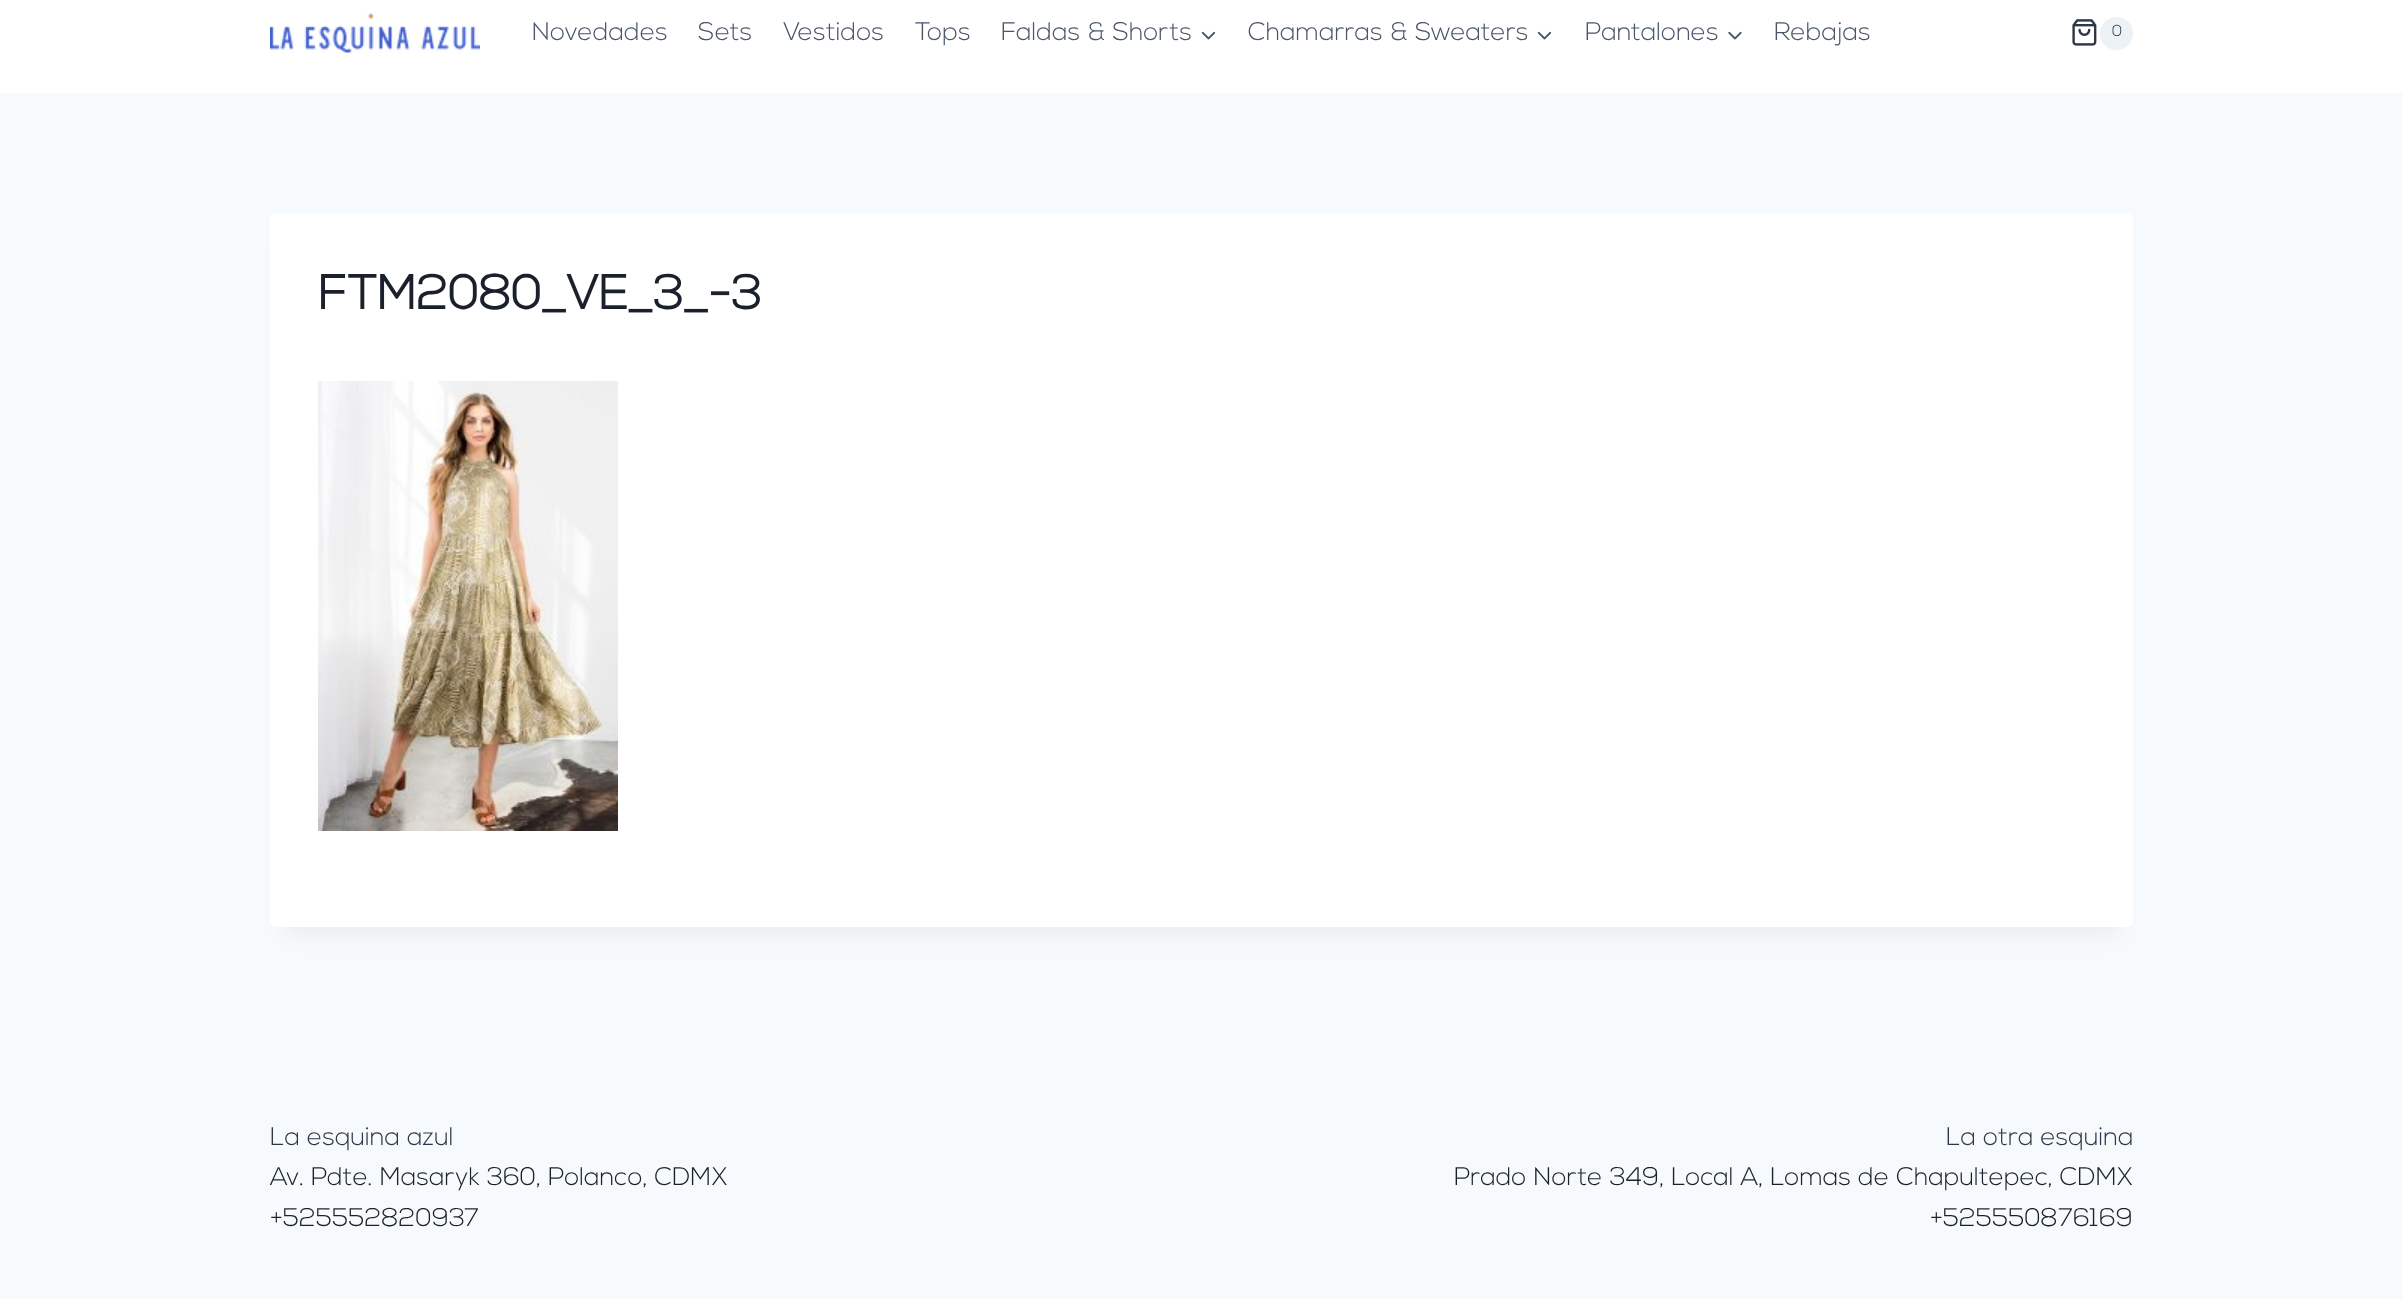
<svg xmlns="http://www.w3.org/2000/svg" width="2402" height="1299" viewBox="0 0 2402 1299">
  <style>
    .t1 { font: 300 25.5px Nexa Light; fill: #4a5568; }
    .t2 { font: 300 16px Nexa Light; fill: #2d3748; }
    .t3 { font: bold 48px Nexa Light; fill: #1a202c; }
    .t4 { font: 300 25.5px Nexa Light; fill: #2d3748; }
    .t5 { font: 300 25.5px Nexa Light; fill: #1a202c; }
  </style>
  <rect width="100%" height="100%" fill="#f7fafc"/>
  <rect x="0" y="0" width="2402" height="93" fill="#fff"/>
  <image x="270" y="13" width="210" height="40" href="images/1.png"/>
  <text x="532" y="40" class="t1">Novedades</text>
  <text x="698" y="40" class="t1">Sets</text>
  <text x="783" y="40" class="t1">Vestidos</text>
  <text x="915" y="40" class="t1">Tops</text>
  <text x="1001" y="40" class="t1">Faldas &amp; Shorts</text>
  <image x="1201" y="31" width="15" height="9" href="images/2.png"/>
  <text x="1248" y="40" class="t1">Chamarras &amp; Sweaters</text>
  <image x="1537" y="31" width="15" height="9" href="images/2.png"/>
  <text x="1585" y="40" class="t1">Pantalones</text>
  <image x="1728" y="31" width="14" height="9" href="images/3.png"/>
  <text x="1774" y="40" class="t1">Rebajas</text>
  <image x="2072" y="19" width="25" height="27" href="images/4.png"/>
  <circle cx="2116.5" cy="33.5" r="16.5" fill="#edf2f7"/>
  <text x="2112" y="36" class="t2">0</text>
  <rect x="285" y="251" width="1833" height="684" fill="#0000000d" filter="blur(11px)"/>
  <rect x="270" y="213" width="1863" height="714" rx="6" fill="#fff"/>
  <text x="318" y="309" class="t3">FTM2080_VE_3_-3</text>
  <image x="318" y="381" width="300" height="450" href="images/5.png"/>
  <text x="270" y="1145" class="t4">La esquina azul</text>
  <text x="270" y="1185" class="t5">Av. Pdte. Masaryk 360, Polanco, CDMX</text>
  <text x="270" y="1226" class="t5">+525552820937</text>
  <text x="1946" y="1145" class="t4">La otra esquina</text>
  <text x="1454" y="1185" class="t5">Prado Norte 349, Local A, Lomas de Chapultepec, CDMX</text>
  <text x="1930" y="1226" class="t5">+525550876169</text>
</svg>
